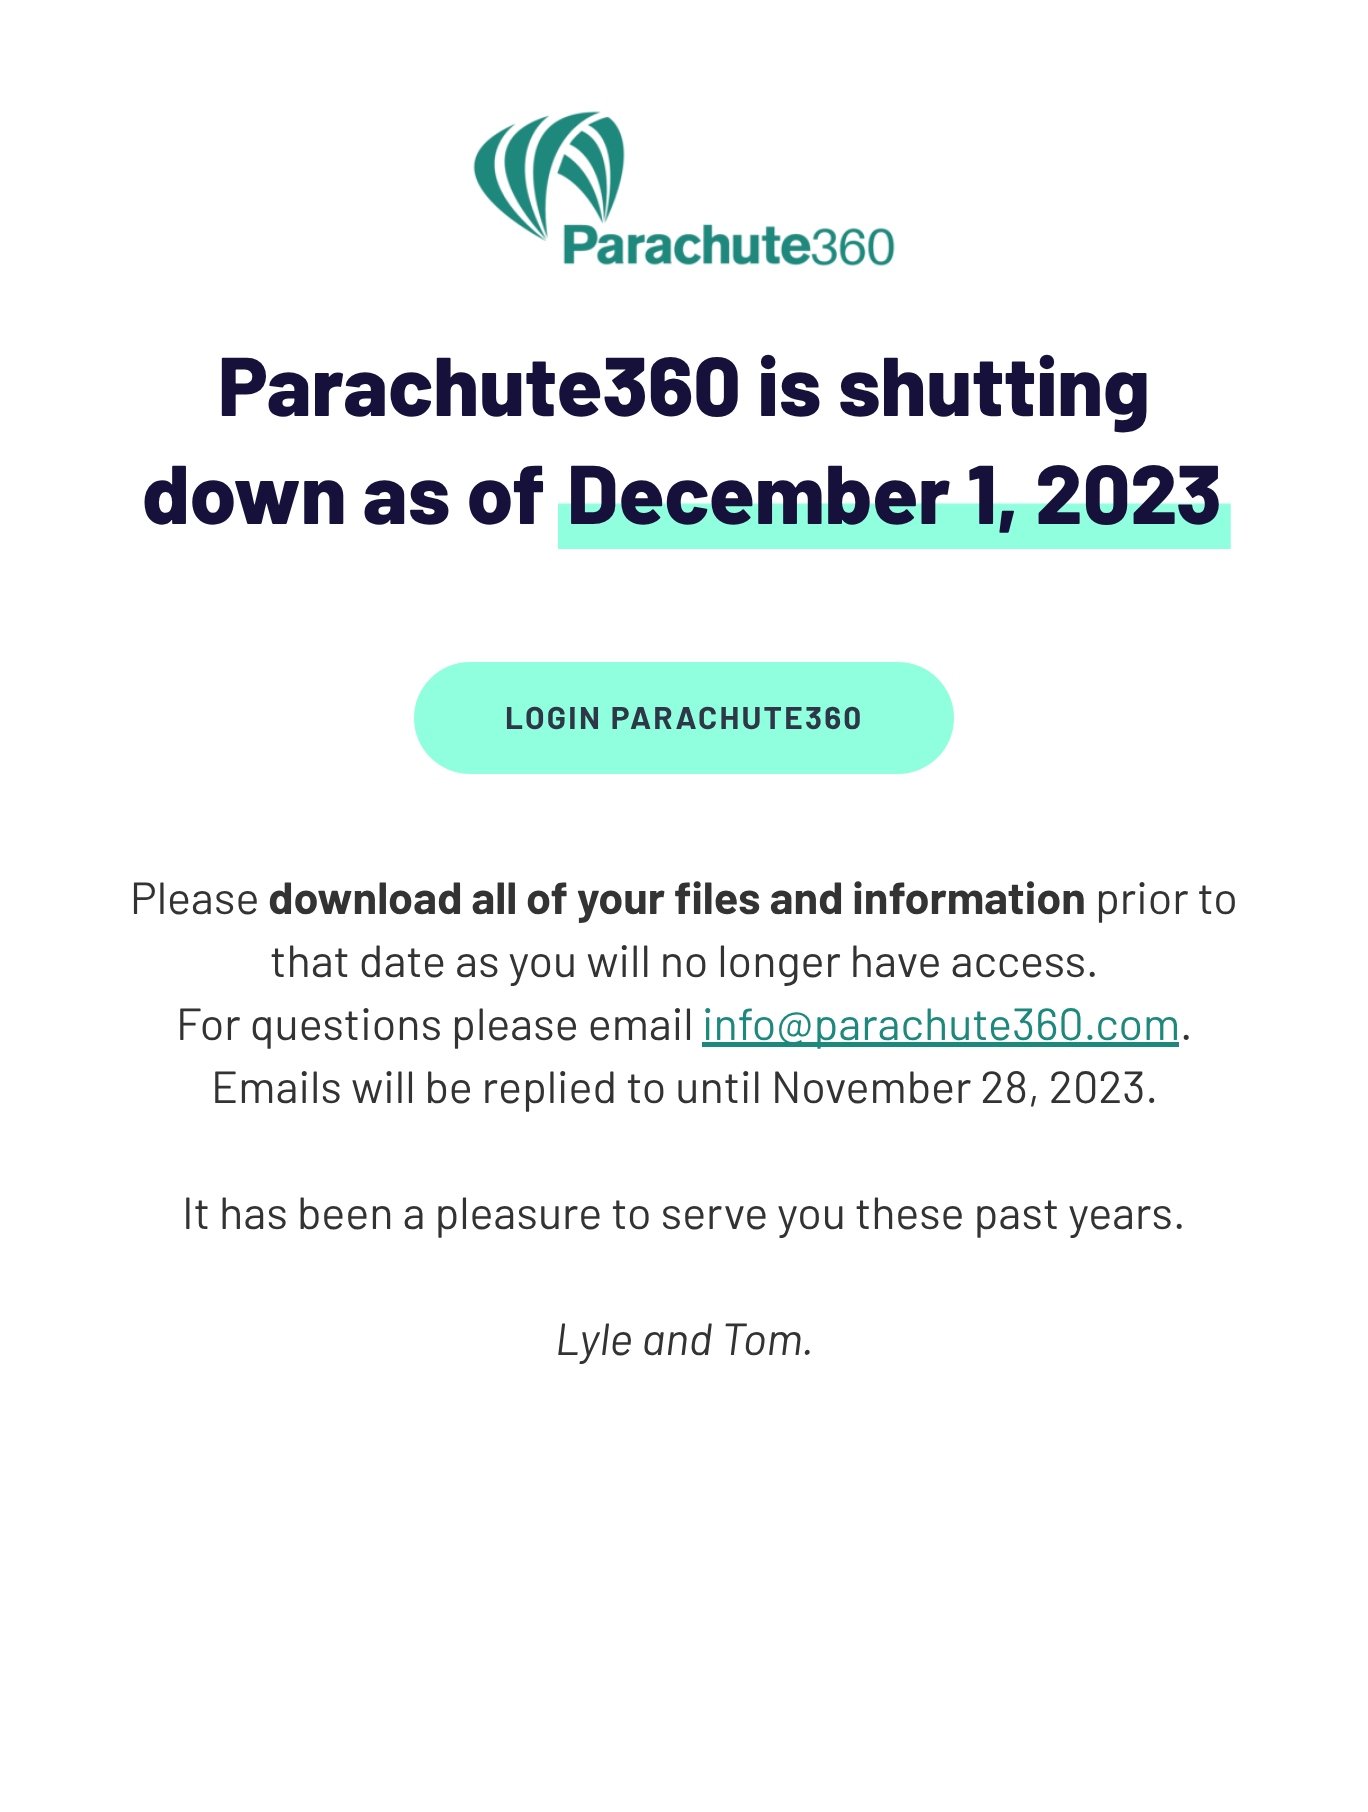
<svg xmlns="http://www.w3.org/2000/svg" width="1368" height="1812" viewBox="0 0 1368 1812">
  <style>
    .t1 { font: 800 83.25px Barlow; fill: #15113b; }
    .t2 { font: bold 31.5px Barlow; letter-spacing: 2.25px; fill: #2e3747; }
    .t3 { font: 45px Barlow; fill: #333; }
    .t4 { font: bold 45px Barlow; fill: #333; }
    .t5 { font: 45px Barlow; fill: #1d887c; }
    .t6 { font: italic 45px Barlow; fill: #333; }
  </style>
  <rect width="100%" height="100%" fill="#fff"/>
  <image x="473" y="111" width="422" height="155" href="images/1.png"/>
  <text x="218" y="416" class="t1">Parachute360 is shutting</text>
  <text x="142" y="524" class="t1">down as of</text>
  <image x="558" y="502" width="673" height="47" href="images/2.png"/>
  <text x="567" y="524" class="t1">December 1, 2023</text>
  <rect x="414" y="662" width="540" height="112" rx="56" fill="#90ffde"/>
  <text x="505" y="729" class="t2">LOGIN PARACHUTE360</text>
  <text x="130" y="914" class="t3">Please</text>
  <text x="268" y="914" class="t4">download all of your files and information</text>
  <text x="1095" y="914" class="t3">prior to</text>
  <text x="270" y="977" class="t3">that date as you will no longer have access.</text>
  <text x="176" y="1040" class="t3">For questions please email</text>
  <rect x="702" y="1042" width="477" height="5" fill="#1d887c"/>
  <text x="702" y="1040" class="t5">info@parachute360.com</text>
  <text x="1180" y="1040" class="t3">.</text>
  <text x="211" y="1103" class="t3">Emails will be replied to until November 28, 2023.</text>
  <text x="182" y="1229" class="t3">It has been a pleasure to serve you these past years.</text>
  <text x="555" y="1355" class="t6">Lyle and Tom.</text>
</svg>
